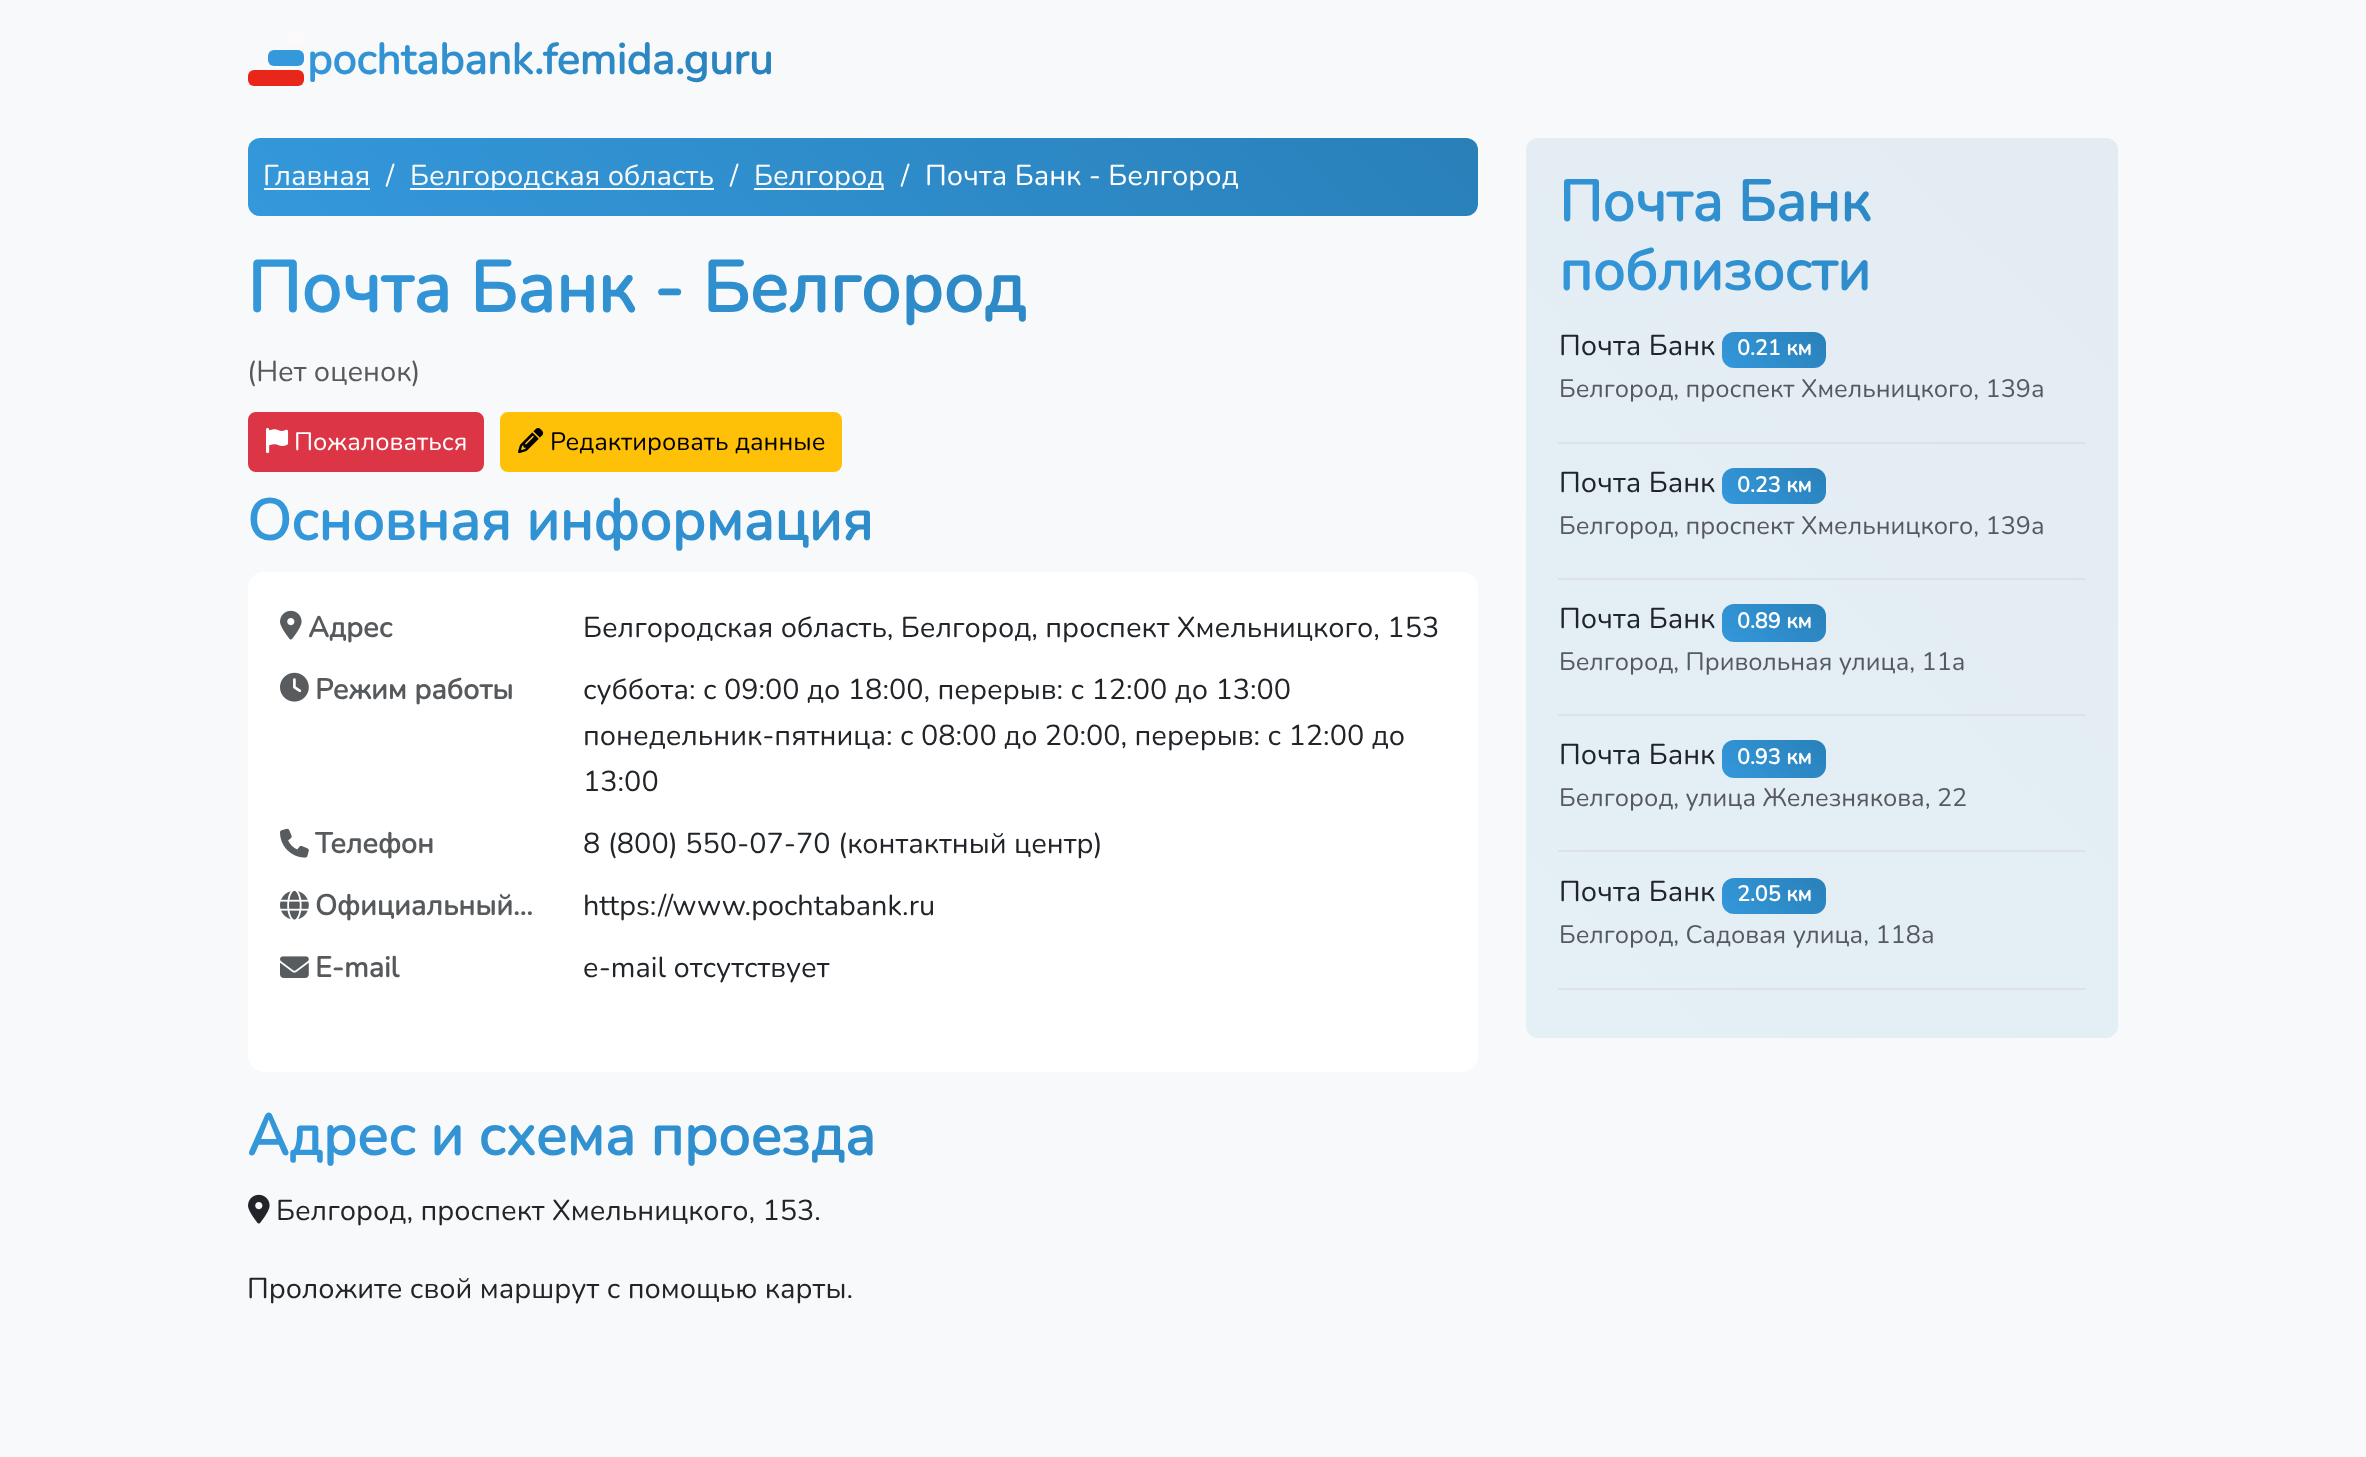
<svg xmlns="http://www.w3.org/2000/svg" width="2366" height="1457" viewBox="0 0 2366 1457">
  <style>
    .t1 { font: bold 43.25px Nunito; fill: url(#g1); }
    .t2 { font: 200 28.8px Nunito; fill: #f8f9fa; }
    .t3 { font: 200 28.8px Nunito; fill: #fff; }
    .t4 { font: bold 71.5px Nunito; fill: url(#g2); }
    .t5 { font: 200 28.8px Nunito; fill: #575a5d; }
    .t6 { font: 200 25.25px Nunito; fill: #fff; }
    .t7 { font: 200 25.25px Nunito; fill: #000; }
    .t8 { font: bold 57.4px Nunito; fill: url(#g3); }
    .t9 { font: bold 28.8px Nunito; fill: #575a5d; }
    .t10 { font: 200 28.8px Nunito; fill: #212529; }
    .t11 { font: bold 57.4px Nunito; fill: url(#g4); }
    .t12 { font: bold 57.4px Nunito; fill: url(#g5); }
    .t13 { font: bold 21.5px Nunito; fill: #fff; }
    .t14 { font: 200 25.25px Nunito; fill: #575a5d; }
  </style>
  <defs>
    <linearGradient id="g1" gradientUnits="userSpaceOnUse" x1="406" y1="194" x2="673" y2="-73"><stop offset="0" stop-color="#3498db"/><stop offset="1" stop-color="#2980b9"/></linearGradient>
    <linearGradient id="g2" gradientUnits="userSpaceOnUse" x1="534" y1="620" x2="1192" y2="-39"><stop offset="0" stop-color="#3498db"/><stop offset="1" stop-color="#2980b9"/></linearGradient>
    <linearGradient id="g3" gradientUnits="userSpaceOnUse" x1="538" y1="847" x2="1188" y2="197"><stop offset="0" stop-color="#3498db"/><stop offset="1" stop-color="#2980b9"/></linearGradient>
    <linearGradient id="g4" gradientUnits="userSpaceOnUse" x1="538" y1="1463" x2="1188" y2="813"><stop offset="0" stop-color="#3498db"/><stop offset="1" stop-color="#2980b9"/></linearGradient>
    <linearGradient id="g5" gradientUnits="userSpaceOnUse" x1="1657" y1="405" x2="1989" y2="72"><stop offset="0" stop-color="#3498db"/><stop offset="1" stop-color="#2980b9"/></linearGradient>
    <linearGradient id="g6" gradientUnits="userSpaceOnUse" x1="536" y1="504" x2="1190" y2="-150"><stop offset="0" stop-color="#3498db"/><stop offset="1" stop-color="#2980b9"/></linearGradient>
    <linearGradient id="g7" gradientUnits="userSpaceOnUse" x1="1449" y1="961" x2="2195" y2="215"><stop offset="0" stop-color="#e4eff6"/><stop offset="1" stop-color="#e3ecf2"/></linearGradient>
    <linearGradient id="g8" gradientUnits="userSpaceOnUse" x1="1739" y1="385" x2="1809" y2="315"><stop offset="0" stop-color="#3498db"/><stop offset="1" stop-color="#2980b9"/></linearGradient>
    <linearGradient id="g9" gradientUnits="userSpaceOnUse" x1="1739" y1="521" x2="1809" y2="451"><stop offset="0" stop-color="#3498db"/><stop offset="1" stop-color="#2980b9"/></linearGradient>
    <linearGradient id="g10" gradientUnits="userSpaceOnUse" x1="1739" y1="659" x2="1810" y2="588"><stop offset="0" stop-color="#3498db"/><stop offset="1" stop-color="#2980b9"/></linearGradient>
    <linearGradient id="g11" gradientUnits="userSpaceOnUse" x1="1739" y1="795" x2="1810" y2="724"><stop offset="0" stop-color="#3498db"/><stop offset="1" stop-color="#2980b9"/></linearGradient>
    <linearGradient id="g12" gradientUnits="userSpaceOnUse" x1="1739" y1="931" x2="1809" y2="861"><stop offset="0" stop-color="#3498db"/><stop offset="1" stop-color="#2980b9"/></linearGradient>
  </defs>
  <rect width="100%" height="100%" fill="#f8f9fa"/>
  <rect x="288" y="30" width="16" height="16" rx="6" fill="#fcfafa"/>
  <rect x="268" y="50" width="36" height="16" rx="6" fill="#3498db"/>
  <rect x="248" y="70" width="56" height="16" rx="6" fill="#e8271a"/>
  <text x="307" y="74" class="t1">pochtabank.femida.guru</text>
  <rect x="248" y="138" width="1230" height="78" rx="12" fill="url(#g6)"/>
  <text x="263" y="185" class="t2">Главная</text>
  <rect x="264" y="188" width="106" height="2" fill="#f8f9fa"/>
  <text x="386" y="185" class="t3">/</text>
  <rect x="410" y="188" width="304" height="2" fill="#f8f9fa"/>
  <text x="410" y="185" class="t2">Белгородская область</text>
  <text x="730" y="185" class="t3">/</text>
  <rect x="754" y="188" width="130" height="2" fill="#f8f9fa"/>
  <text x="754" y="185" class="t2">Белгород</text>
  <text x="901" y="185" class="t3">/</text>
  <text x="925" y="185" class="t3">Почта Банк - Белгород</text>
  <text x="247" y="312" class="t4">Почта Банк - Белгород</text>
  <text x="247" y="381" class="t5">(Нет оценок)</text>
  <rect x="249" y="413" width="234" height="58" rx="7" fill="#dc3545" stroke="#dc3545" stroke-width="2"/>
  <image x="266" y="428" width="23" height="26" href="images/1.png"/>
  <text x="294" y="450" class="t6">Пожаловаться</text>
  <rect x="501" y="413" width="340" height="58" rx="7" fill="#ffc107" stroke="#ffc107" stroke-width="2"/>
  <image x="518" y="428" width="26" height="26" href="images/2.png"/>
  <text x="550" y="450" class="t7">Редактировать данные</text>
  <text x="247" y="540" class="t8">Основная информация</text>
  <rect x="248" y="572" width="1230" height="500" rx="16" fill="#fff"/>
  <image x="280" y="610" width="22" height="30" href="images/3.png"/>
  <text x="308" y="637" class="t9">Адрес</text>
  <text x="583" y="637" class="t10">Белгородская область, Белгород, проспект Хмельницкого, 153</text>
  <image x="280" y="672" width="29" height="30" href="images/4.png"/>
  <text x="315" y="699" class="t9">Режим работы</text>
  <text x="583" y="699" class="t10">суббота: с 09:00 до 18:00, перерыв: с 12:00 до 13:00</text>
  <text x="583" y="745" class="t10">понедельник-пятница: с 08:00 до 20:00, перерыв: с 12:00 до</text>
  <text x="583" y="791" class="t10">13:00</text>
  <image x="280" y="828" width="29" height="30" href="images/5.png"/>
  <text x="315" y="853" class="t9">Телефон</text>
  <text x="583" y="853" class="t10">8 (800) 550-07-70 (контактный центр)</text>
  <image x="280" y="890" width="29" height="30" href="images/6.png"/>
  <text x="315" y="915" class="t9">Официальный…</text>
  <text x="583" y="915" class="t10">https://www.pochtabank.ru</text>
  <image x="280" y="956" width="29" height="22" href="images/7.png"/>
  <text x="315" y="977" class="t9">E-mail</text>
  <text x="583" y="977" class="t10">e-mail отсутствует</text>
  <text x="247" y="1155" class="t11">Адрес и схема проезда</text>
  <image x="248" y="1194" width="22" height="30" href="images/8.png"/>
  <text x="276" y="1220" class="t10">Белгород, проспект Хмельницкого, 153.</text>
  <text x="247" y="1298" class="t10">Проложите свой маршрут с помощью карты.</text>
  <rect x="1526" y="138" width="592" height="900" rx="12" fill="url(#g7)"/>
  <text x="1559" y="221" class="t12">Почта Банк</text>
  <text x="1559" y="290" class="t12">поблизости</text>
  <rect x="1558" y="442" width="528" height="2" fill="#dee2e6"/>
  <text x="1559" y="355" class="t10">Почта Банк</text>
  <rect x="1722" y="332" width="104" height="36" rx="12" fill="url(#g8)"/>
  <text x="1737" y="355" class="t13">0.21 км</text>
  <text x="1559" y="397" class="t14">Белгород, проспект Хмельницкого, 139а</text>
  <rect x="1558" y="578" width="528" height="2" fill="#dee2e6"/>
  <text x="1559" y="492" class="t10">Почта Банк</text>
  <rect x="1722" y="468" width="104" height="36" rx="12" fill="url(#g9)"/>
  <text x="1737" y="492" class="t13">0.23 км</text>
  <text x="1559" y="534" class="t14">Белгород, проспект Хмельницкого, 139а</text>
  <rect x="1558" y="714" width="528" height="2" fill="#dee2e6"/>
  <text x="1559" y="628" class="t10">Почта Банк</text>
  <rect x="1722" y="604" width="104" height="38" rx="12" fill="url(#g10)"/>
  <text x="1737" y="628" class="t13">0.89 км</text>
  <text x="1559" y="670" class="t14">Белгород, Привольная улица, 11а</text>
  <rect x="1558" y="850" width="528" height="2" fill="#dee2e6"/>
  <text x="1559" y="764" class="t10">Почта Банк</text>
  <rect x="1722" y="740" width="104" height="38" rx="12" fill="url(#g11)"/>
  <text x="1737" y="764" class="t13">0.93 км</text>
  <text x="1559" y="806" class="t14">Белгород, улица Железнякова, 22</text>
  <rect x="1558" y="988" width="528" height="2" fill="#dee2e6"/>
  <text x="1559" y="901" class="t10">Почта Банк</text>
  <rect x="1722" y="878" width="104" height="36" rx="12" fill="url(#g12)"/>
  <text x="1737" y="901" class="t13">2.05 км</text>
  <text x="1559" y="943" class="t14">Белгород, Садовая улица, 118а</text>
</svg>
